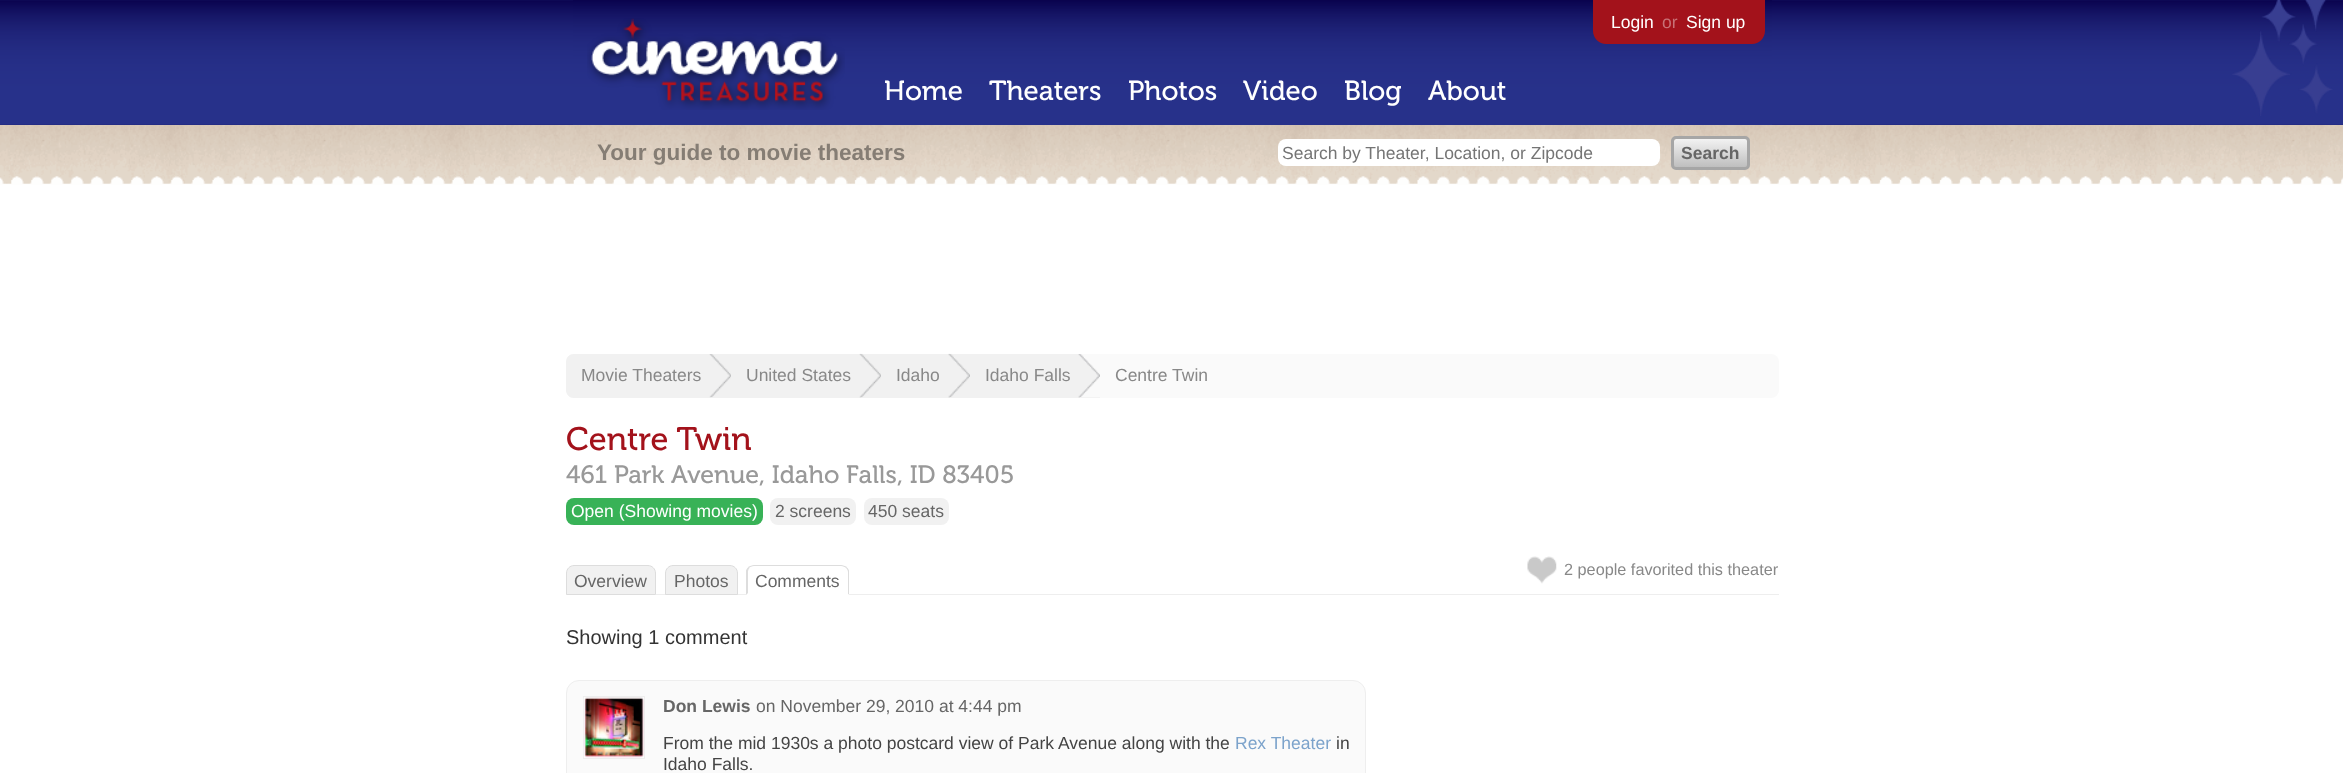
<svg xmlns="http://www.w3.org/2000/svg" width="2343" height="773" viewBox="0 0 2343 773">
  <style>
    .t1 { font: 27.5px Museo; fill: #fff; }
    .t2 { font: 17.5px Liberation Sans; fill: #fff; }
    .t3 { font: 17.5px Liberation Sans; fill: #c87176; }
    .t4 { font: bold 22.5px Liberation Sans; fill: #857d74; }
    .t5 { font: 17.5px Liberation Sans; fill: #757575; }
    .t6 { font: bold 17.5px Liberation Sans; fill: #666; }
    .t7 { font: 17.5px Liberation Sans; fill: #888; }
    .t8 { font: 32.5px Museo; fill: #a3121b; }
    .t9 { font: 25px Museo; fill: #999; }
    .t10 { font: 17.5px Liberation Sans; fill: #666; }
    .t11 { font: 16.25px Liberation Sans; fill: #888; }
    .t12 { font: 20px Liberation Sans; fill: #333; }
    .t13 { font: 17.5px Liberation Sans; fill: #444; }
    .t14 { font: 17.5px Liberation Sans; fill: #7ca3cb; }
  </style>
  <defs>
    <linearGradient id="g1" gradientUnits="userSpaceOnUse" x1="1711" y1="139" x2="1711" y2="168"><stop offset="0" stop-color="#f2f2f2"/><stop offset="1" stop-color="#bdbdbd"/></linearGradient>
  </defs>
  <rect width="100%" height="100%" fill="#fff"/>
  <image x="0" y="0" width="2343" height="125" href="images/1.png"/>
  <image x="573" y="0" width="1199" height="125" href="images/2.png"/>
  <image x="587" y="18" width="258" height="92" href="images/3.png"/>
  <text x="884" y="100" class="t1">Home</text>
  <text x="989" y="100" class="t1">Theaters</text>
  <text x="1128" y="100" class="t1">Photos</text>
  <text x="1243" y="100" class="t1">Video</text>
  <text x="1344" y="100" class="t1">Blog</text>
  <text x="1428" y="100" class="t1">About</text>
  <path d="M1593 0H1765V31C1765 38 1759 44 1752 44H1606C1599 44 1593 38 1593 31Z" fill="#a3121b"/>
  <text x="1611" y="28" class="t2">Login</text>
  <text x="1662" y="28" class="t3">or</text>
  <text x="1686" y="28" class="t2">Sign up</text>
  <image x="2232" y="0" width="101" height="116" href="images/4.png"/>
  <image x="0" y="125" width="2343" height="60" href="images/5.png"/>
  <text x="597" y="160" class="t4">Your guide to movie theaters</text>
  <rect x="1278" y="139" width="382" height="27" rx="8" fill="#fff"/>
  <text x="1282" y="159" class="t5">Search by Theater, Location, or Zipcode</text>
  <rect x="1674" y="139" width="74" height="29" rx="2.5" fill="url(#g1)"/>
  <rect x="1672.5" y="137.5" width="76" height="31" rx="3.5" fill="none" stroke="#a6a6a6" stroke-width="3"/>
  <text x="1681" y="159" class="t6">Search</text>
  <rect x="566" y="354" width="1213" height="44" rx="8" fill="#fafafa"/>
  <path d="M574 354H731V398H574C569.5 398 566 394.5 566 390V362C566 357.5 569.5 354 574 354Z" fill="#f1f1f1"/>
  <image x="709" y="354" width="22" height="44" href="images/6.png"/>
  <text x="581" y="381" class="t7">Movie Theaters</text>
  <rect x="731" y="354" width="369" height="44" fill="#f1f1f1"/>
  <image x="859" y="353" width="22" height="45" href="images/7.png"/>
  <text x="746" y="381" class="t7">United States</text>
  <image x="948" y="353" width="22" height="45" href="images/8.png"/>
  <text x="896" y="381" class="t7">Idaho</text>
  <image x="1078" y="354" width="22" height="44" href="images/9.png"/>
  <text x="985" y="381" class="t7">Idaho Falls</text>
  <text x="1115" y="381" class="t7">Centre Twin</text>
  <text x="566" y="450" class="t8">Centre Twin</text>
  <text x="566" y="483" class="t9">461 Park Avenue, Idaho Falls, ID 83405</text>
  <rect x="566" y="498" width="197" height="27" rx="8" fill="#38b257"/>
  <text x="571" y="517" class="t2">Open (Showing movies)</text>
  <rect x="770" y="498" width="86" height="27" rx="8" fill="#f1f1f1"/>
  <text x="775" y="517" class="t10">2 screens</text>
  <rect x="864" y="498" width="85" height="27" rx="8" fill="#f1f1f1"/>
  <text x="868" y="517" class="t10">450 seats</text>
  <image x="1527" y="556" width="30" height="28" href="images/10.png"/>
  <text x="1564" y="575" class="t11">2 people favorited this theater</text>
  <rect x="656" y="594" width="1123" height="1" fill="#eee"/>
  <path d="M574 565.5H648C652 565.5 655.5 569 655.5 573V594.5H566.5V573C566.5 569 570 565.5 574 565.5Z" fill="#f1f1f1" stroke="#ddd"/>
  <text x="574" y="587" class="t10">Overview</text>
  <path d="M673 565.5H730C734 565.5 737.5 569 737.5 573V594.5H665.5V573C665.5 569 669 565.5 673 565.5Z" fill="#f1f1f1" stroke="#ddd"/>
  <text x="674" y="587" class="t10">Photos</text>
  <path d="M754 565H841C845.5 565 849 568.5 849 573V595H746V573C746 568.5 749.5 565 754 565Z" fill="#fff"/>
  <text x="755" y="587" class="t10">Comments</text>
  <path d="M754 565C752 565 750 566 748 567L749 568C750 567 752 566 754 566H841C843 566 845 567 846 568L847 567C845 566 843 565 841 565Z" fill="#ddd"/>
  <path d="M849 570.5V595L848 594V572C848 570.5 847 569 846 568L846.5 567C847.5 568 848.5 569 849 570.5Z" fill="#ddd"/>
  <path d="M849 595L848 594H748V593L746 595Z" fill="#fff"/>
  <path d="M746 595V570.5C746.5 569 747.5 568 748.5 567L749.5 568C748.5 569 748 570.5 748 572V593Z" fill="#ddd"/>
  <text x="566" y="644" class="t12">Showing 1 comment</text>
  <rect x="566.5" y="680.5" width="799" height="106" rx="12.5" fill="#fafafa" stroke="#eee"/>
  <rect x="583.5" y="696.5" width="61" height="62" fill="none" stroke="#eee"/>
  <image x="583" y="697" width="61" height="61" href="images/11.png"/>
  <text x="663" y="712" class="t6">Don Lewis</text>
  <text x="756" y="712" class="t10">on November 29, 2010 at 4:44 pm</text>
  <text x="663" y="749" class="t13">From the mid 1930s a photo postcard view of Park Avenue along with the</text>
  <text x="1235" y="749" class="t14">Rex Theater</text>
  <text x="1336" y="749" class="t13">in</text>
  <text x="663" y="770" class="t13">Idaho Falls.</text>
</svg>
